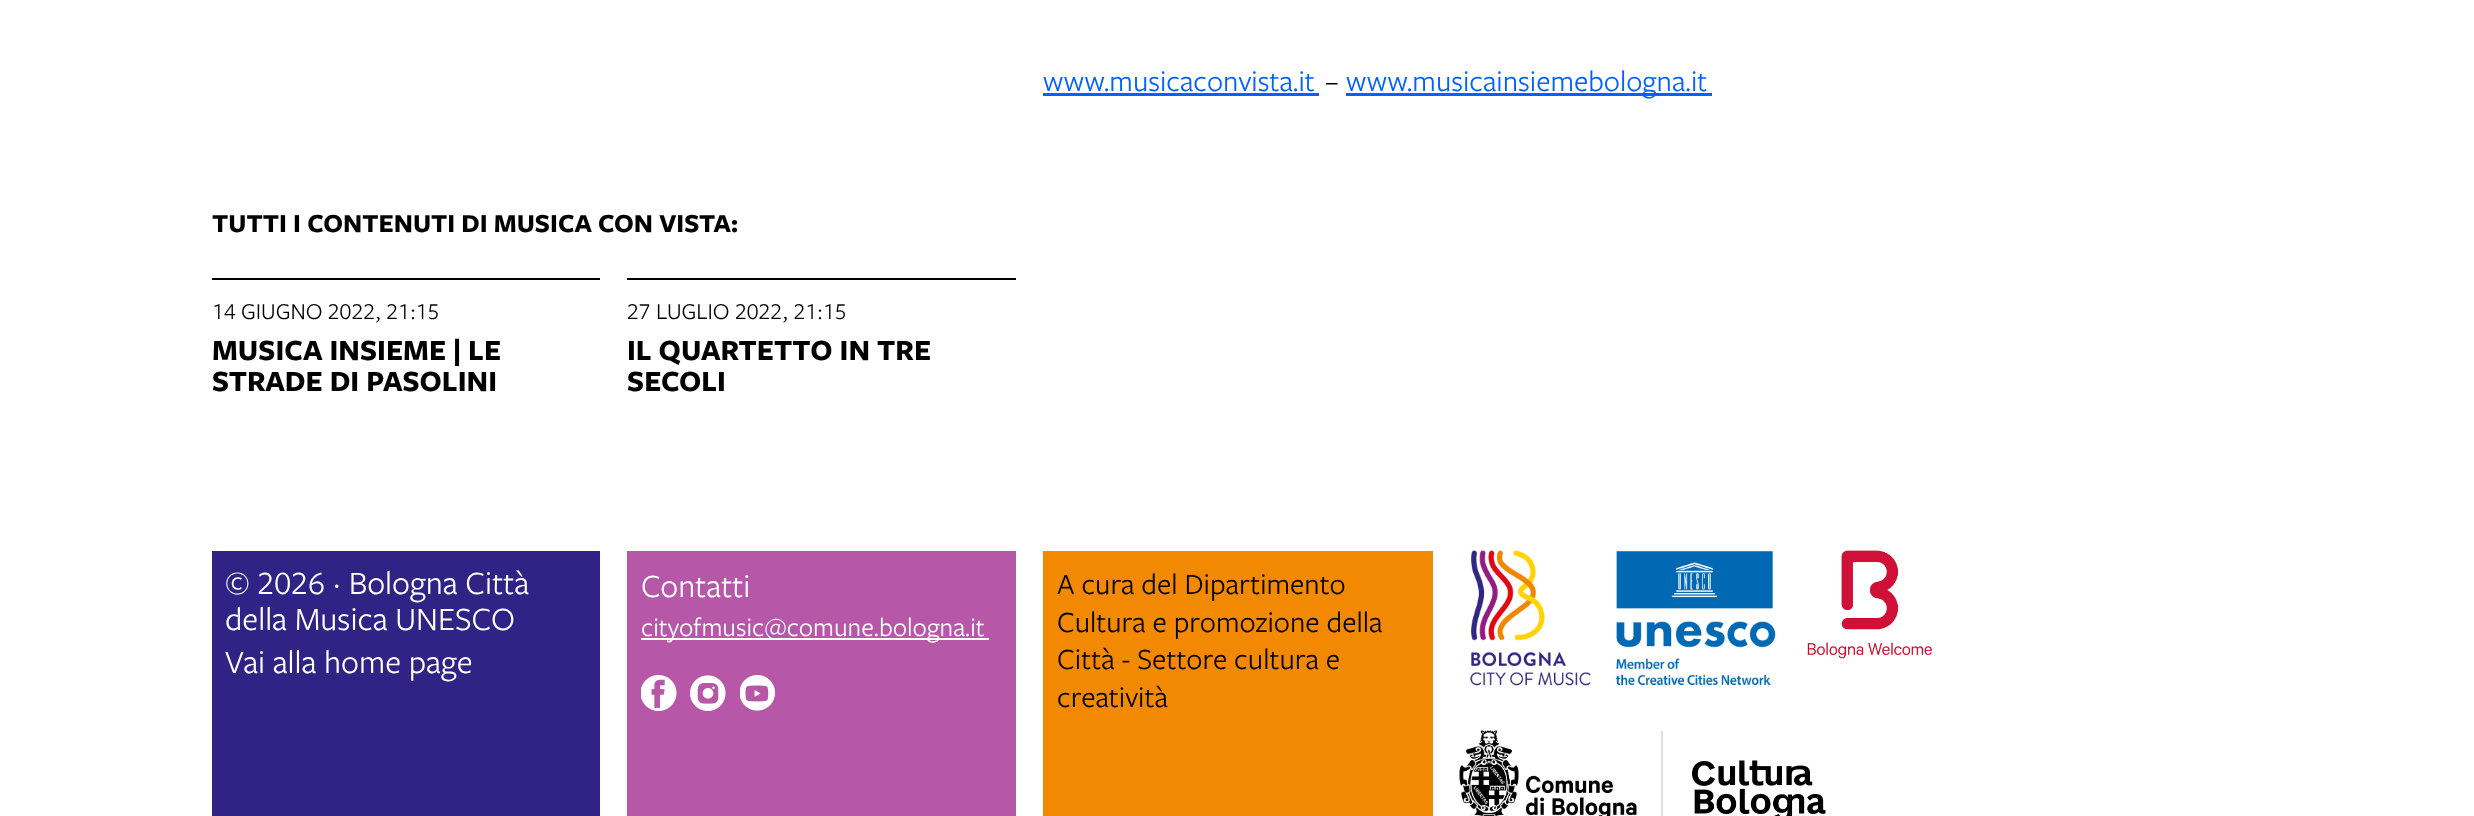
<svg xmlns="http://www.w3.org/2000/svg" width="2474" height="816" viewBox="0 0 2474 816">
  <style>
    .t1 { font: 30.4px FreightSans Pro; fill: #0062ff; }
    .t2 { font: 30.4px FreightSans Pro; fill: #000; }
    .t3 { font: bold 27px FreightSans Pro; fill: #000; }
    .t4 { font: 23.6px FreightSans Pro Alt; fill: #000; }
    .t5 { font: bold 30.4px FreightSans Pro; fill: #000; }
    .t6 { font: 33.75px FreightSans Pro Alt; fill: #fff; }
    .t7 { font: 33.75px FreightSans Pro; fill: #fff; }
    .t8 { font: 27px FreightSans Pro; fill: #fff; }
  </style>
  <rect width="100%" height="100%" fill="#fff"/>
  <text x="1043" y="91" class="t1">www.musicaconvista.it</text>
  <rect x="1043" y="93" width="276" height="3" fill="#0062ff"/>
  <text x="1325" y="91" class="t2">–</text>
  <rect x="1346" y="93" width="366" height="3" fill="#0062ff"/>
  <text x="1346" y="91" class="t1">www.musicainsiemebologna.it</text>
  <text x="212" y="232" class="t3">TUTTI I CONTENUTI DI MUSICA CON VISTA:</text>
  <rect x="212" y="278" width="388" height="2" fill="#000"/>
  <text x="212" y="319" class="t4">14 GIUGNO 2022, 21:15</text>
  <text x="212" y="360" class="t5">MUSICA INSIEME | LE</text>
  <text x="212" y="391" class="t5">STRADE DI PASOLINI</text>
  <rect x="627" y="278" width="389" height="2" fill="#000"/>
  <text x="627" y="319" class="t4">27 LUGLIO 2022, 21:15</text>
  <text x="627" y="360" class="t5">IL QUARTETTO IN TRE</text>
  <text x="627" y="391" class="t5">SECOLI</text>
  <rect x="212" y="551" width="388" height="265" fill="#312385"/>
  <text x="225" y="594" class="t6">© 2026 · Bologna Città</text>
  <text x="225" y="630" class="t7">della Musica UNESCO</text>
  <text x="225" y="673" class="t7">Vai alla home page</text>
  <rect x="627" y="551" width="389" height="265" fill="#b658a7"/>
  <text x="641" y="597" class="t7">Contatti</text>
  <rect x="641" y="638" width="348" height="2" fill="#fff"/>
  <text x="641" y="636" class="t8">cityofmusic@comune.bologna.it</text>
  <image x="641" y="675" width="36" height="36" href="images/1.png"/>
  <image x="690" y="675" width="36" height="36" href="images/2.png"/>
  <image x="740" y="675" width="36" height="36" href="images/3.png"/>
  <rect x="1043" y="551" width="390" height="265" fill="#f38900"/>
  <text x="1057" y="594" class="t2">A cura del Dipartimento</text>
  <text x="1057" y="632" class="t2">Cultura e promozione della</text>
  <text x="1057" y="669" class="t2">Città - Settore cultura e</text>
  <text x="1057" y="707" class="t2">creatività</text>
  <image x="1470" y="550" width="306" height="136" href="images/4.png"/>
  <image x="1807" y="550" width="125" height="109" href="images/5.png"/>
  <rect x="1661" y="731" width="2" height="85" fill="#dedede"/>
  <image x="1459" y="730" width="178" height="86" href="images/6.png"/>
  <image x="1692" y="760" width="134" height="56" href="images/7.png"/>
</svg>
